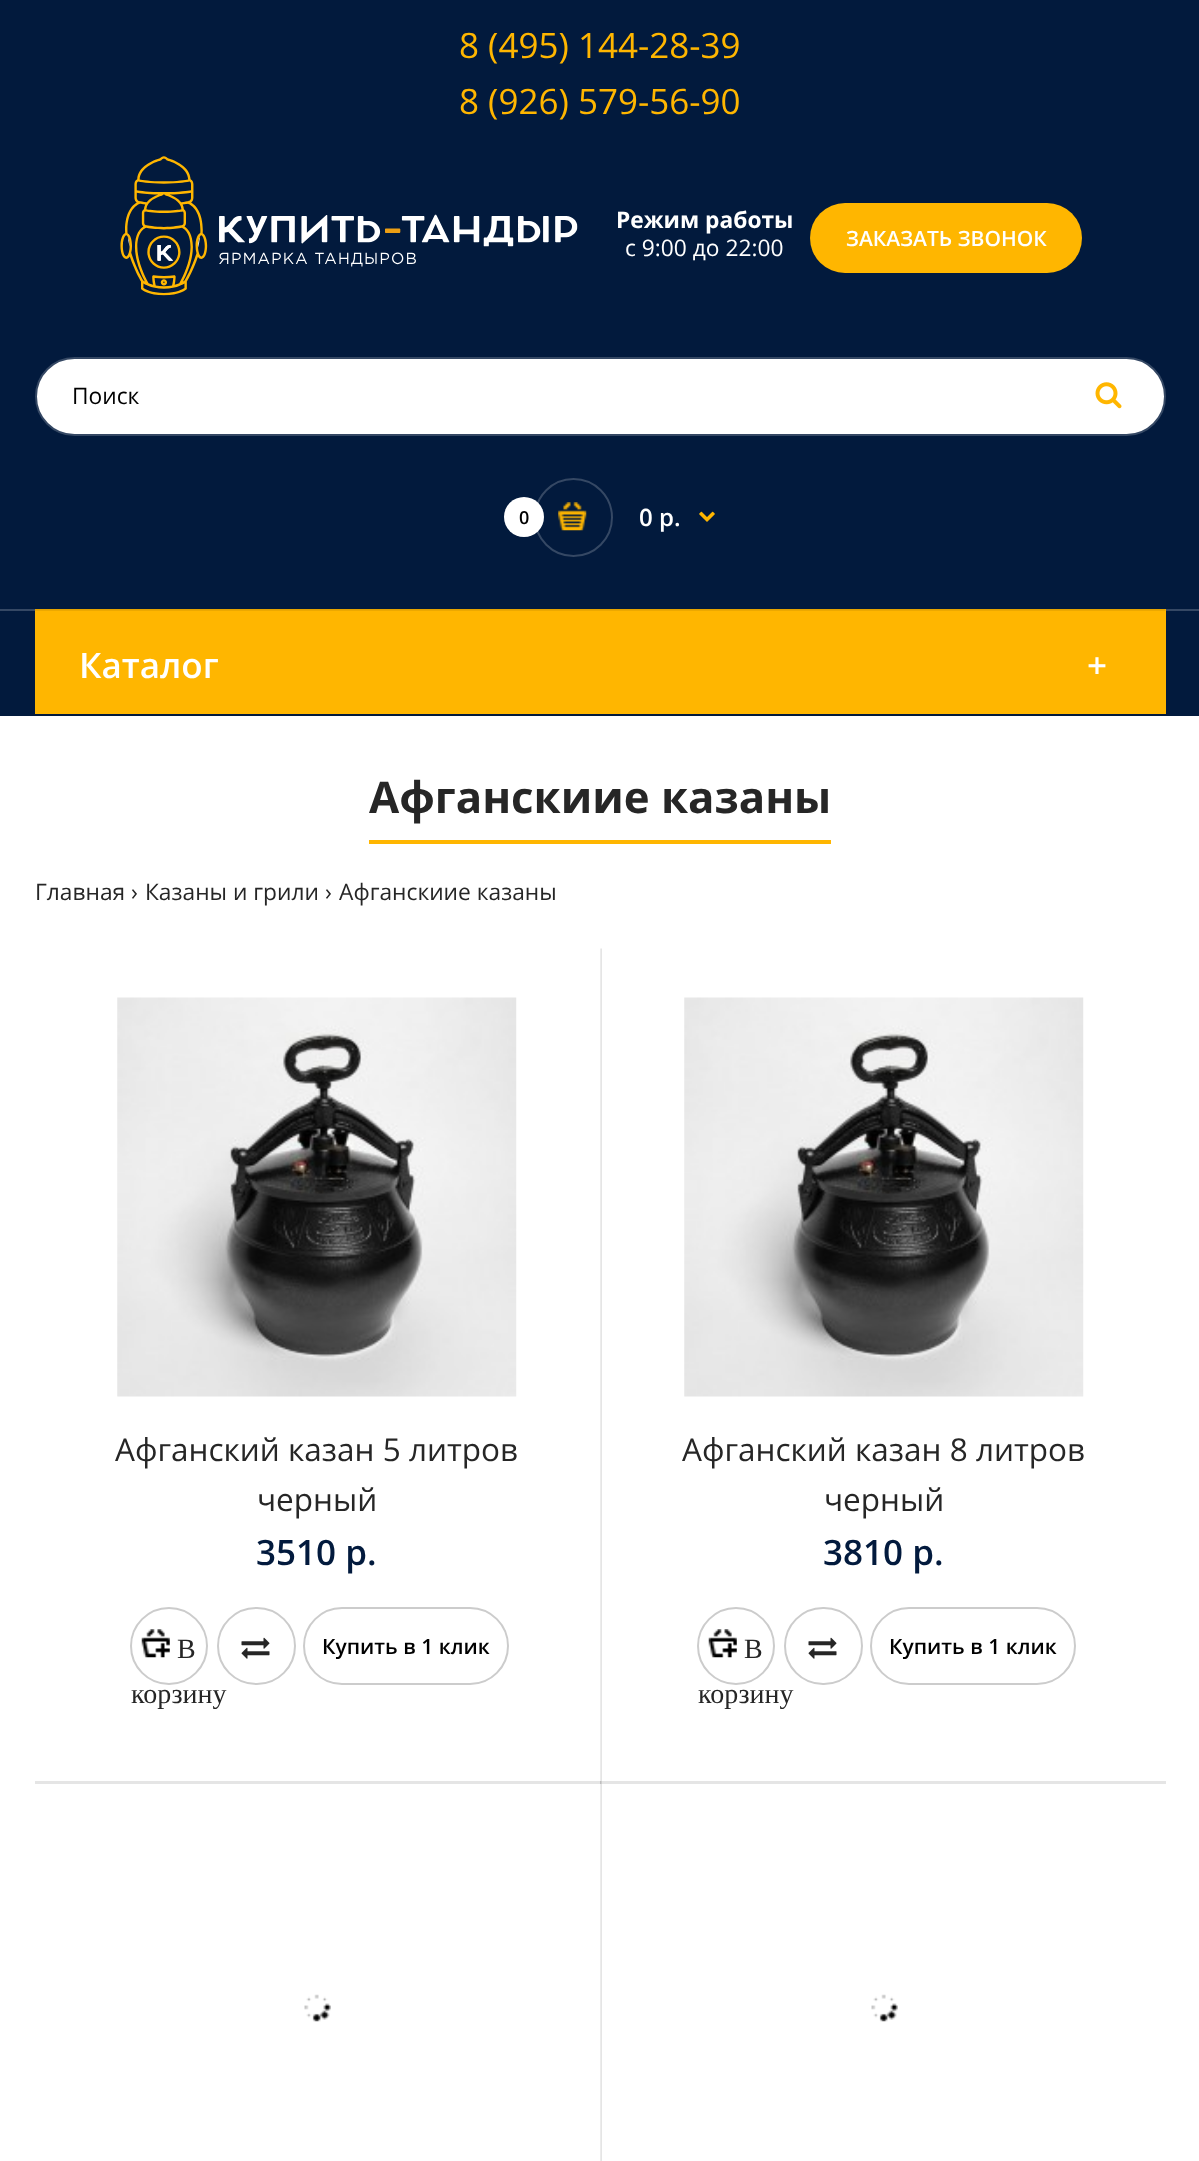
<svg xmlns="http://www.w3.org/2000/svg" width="1199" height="2161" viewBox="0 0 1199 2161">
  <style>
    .t1 { font: 35px Open Sans; fill: #ffb600; }
    .t2 { font: bold 22.75px Open Sans; fill: #fff; }
    .t3 { font: 22.75px Open Sans; fill: #fff; }
    .t4 { font: 600 21px Open Sans; fill: #fff; }
    .t5 { font: 22.75px Open Sans; fill: #000; }
    .t6 { font: 600 18px Open Sans; fill: #000; }
    .t7 { font: 600 24px Open Sans; fill: #fff; }
    .t8 { font: 600 35px Open Sans; fill: #fff; }
    .t9 { font: bold 43.75px Open Sans; fill: #262626; }
    .t10 { font: 22.75px Open Sans; fill: #262626; }
    .t11 { font: 31.5px Open Sans; fill: #262626; }
    .t12 { font: 600 35px Open Sans; fill: #021a3d; }
    .t13 { font: 28px Liberation Serif; fill: #262626; }
    .t14 { font: 600 21px Open Sans; fill: #000; }
  </style>
  <rect width="100%" height="100%" fill="#fff"/>
  <rect x="0" y="0" width="1199" height="716" fill="#021a3d"/>
  <text x="459" y="58" class="t1">8 (495) 144-28-39</text>
  <text x="459" y="114" class="t1">8 (926) 579-56-90</text>
  <image x="120" y="156" width="458" height="140" href="images/1.png"/>
  <text x="616" y="228" class="t2">Режим работы</text>
  <text x="625" y="256" class="t3">с 9:00 до 22:00</text>
  <rect x="810" y="203" width="272" height="70" rx="35" fill="#ffb600"/>
  <text x="846" y="246" class="t4">ЗАКАЗАТЬ ЗВОНОК</text>
  <rect x="36" y="358" width="1129" height="77" rx="38.5" fill="#fff" stroke="#354864" stroke-width="2"/>
  <text x="72" y="404" class="t5">Поиск</text>
  <image x="1095" y="382" width="27" height="27" href="images/2.png"/>
  <circle cx="573.5" cy="517.5" r="38.5" fill="none" stroke="#354864" stroke-width="2"/>
  <circle cx="524" cy="517" r="20" fill="#fff"/>
  <text x="519" y="524" class="t6">0</text>
  <image x="558" y="502" width="29" height="29" href="images/3.png"/>
  <text x="639" y="526" class="t7">0 р.</text>
  <image x="699" y="511" width="16" height="11" href="images/4.png"/>
  <rect x="0" y="609" width="1199" height="2" fill="#354864"/>
  <rect x="35" y="609" width="1131" height="105" fill="#ffb600"/>
  <image x="35" y="609" width="1131" height="2" href="images/5.png"/>
  <text x="79" y="678" class="t8">Каталог</text>
  <text x="1087" y="678" class="t8">+</text>
  <rect x="369" y="840" width="462" height="4" fill="#ffb600"/>
  <text x="369" y="813" class="t9">Афганскиие казаны</text>
  <text x="35" y="900" class="t10">Главная ›</text>
  <text x="145" y="900" class="t10">Казаны и грили ›</text>
  <text x="339" y="900" class="t10">Афганскиие казаны</text>
  <image x="117" y="997" width="400" height="400" href="images/6.png"/>
  <image x="600" y="948" width="2" height="836" href="images/7.png"/>
  <text x="115" y="1461" class="t11">Афганский казан 5 литров</text>
  <text x="257" y="1511" class="t11">черный</text>
  <text x="256" y="1565" class="t12">3510 р.</text>
  <circle cx="169" cy="1646" r="38" fill="none" stroke="#ccc" stroke-width="2"/>
  <image x="141" y="1629" width="29" height="29" href="images/8.png"/>
  <text x="177" y="1658" class="t13">В</text>
  <text x="131" y="1703" class="t13">корзину</text>
  <rect x="218" y="1608" width="77" height="76" rx="38" fill="none" stroke="#ccc" stroke-width="2"/>
  <image x="241" y="1637" width="29" height="22" href="images/9.png"/>
  <rect x="304" y="1608" width="204" height="76" rx="38" fill="none" stroke="#ccc" stroke-width="2"/>
  <text x="322" y="1654" class="t14">Купить в 1 клик</text>
  <image x="684" y="997" width="400" height="400" href="images/6.png"/>
  <text x="682" y="1461" class="t11">Афганский казан 8 литров</text>
  <text x="824" y="1511" class="t11">черный</text>
  <text x="823" y="1565" class="t12">3810 р.</text>
  <circle cx="736" cy="1646" r="38" fill="none" stroke="#ccc" stroke-width="2"/>
  <image x="708" y="1629" width="29" height="29" href="images/10.png"/>
  <text x="744" y="1658" class="t13">В</text>
  <text x="698" y="1703" class="t13">корзину</text>
  <rect x="785" y="1608" width="77" height="76" rx="38" fill="none" stroke="#ccc" stroke-width="2"/>
  <image x="808" y="1637" width="29" height="22" href="images/9.png"/>
  <rect x="871" y="1608" width="204" height="76" rx="38" fill="none" stroke="#ccc" stroke-width="2"/>
  <text x="889" y="1654" class="t14">Купить в 1 клик</text>
  <image x="600" y="1783" width="2" height="378" href="images/12.png"/>
  <rect x="35" y="1781" width="566" height="3" fill="#0000001a"/>
  <image x="304" y="1994" width="27" height="28" href="images/11.png"/>
  <rect x="600" y="1781" width="566" height="3" fill="#0000001a"/>
  <image x="871" y="1994" width="27" height="28" href="images/11.png"/>
</svg>
